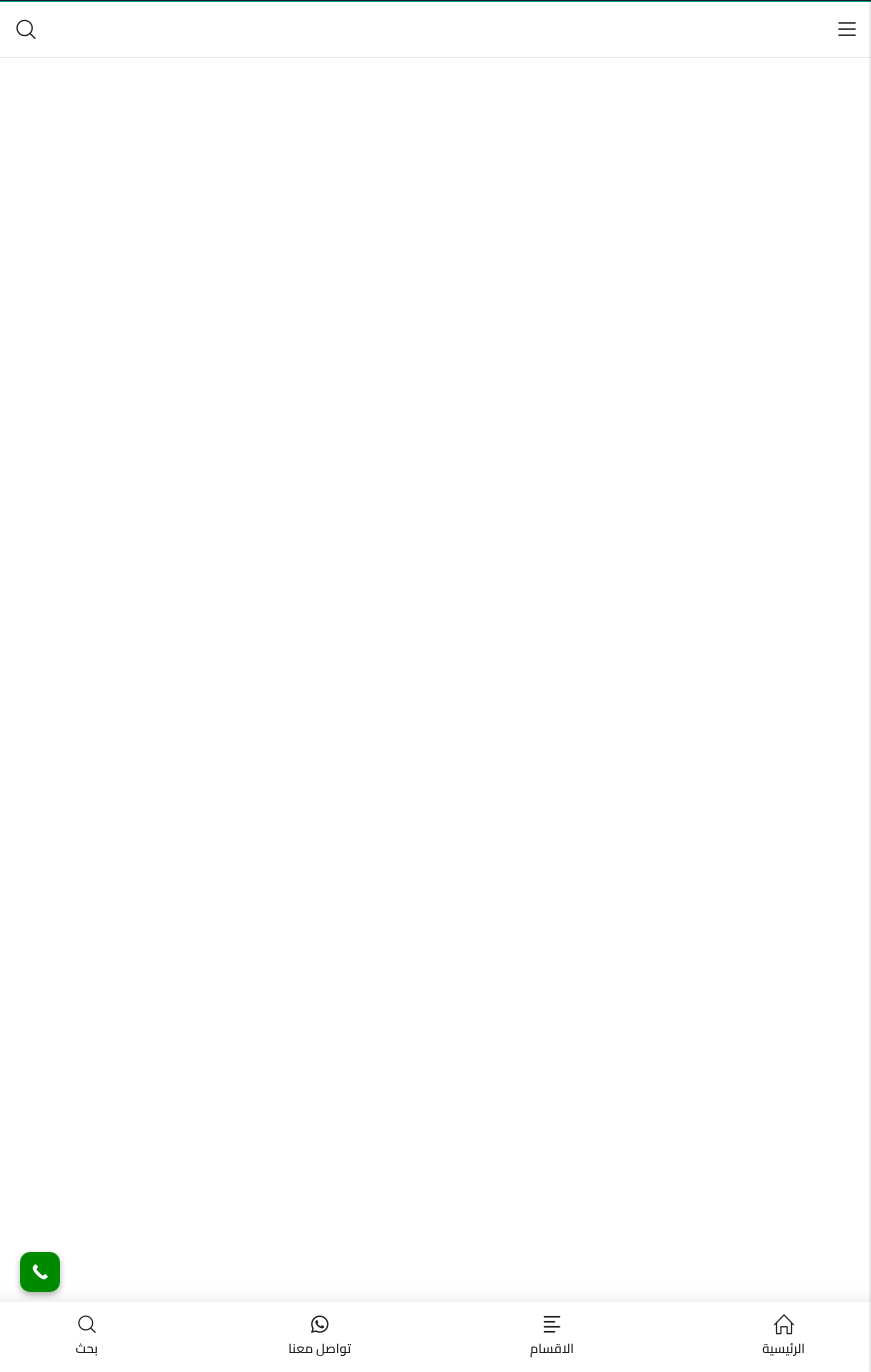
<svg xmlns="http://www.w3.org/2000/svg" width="871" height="1372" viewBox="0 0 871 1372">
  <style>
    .t1 { font: 600 13px Cairo; direction: rtl; fill: #1f1f1f; }
  </style>
  <rect width="100%" height="100%" fill="#fff"/>
  <rect x="0" y="0" width="871" height="1" fill="#1f1f1f"/>
  <rect x="0" y="1" width="871" height="1" fill="#009c97"/>
  <rect x="0" y="57" width="871" height="1" fill="#e9e9e9"/>
  <image x="838" y="22" width="18" height="14" href="images/1.png"/>
  <image x="16" y="19" width="20" height="20" href="images/2.png"/>
  <rect x="-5" y="1302" width="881" height="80" fill="#40485626" filter="blur(9px)"/>
  <rect x="0" y="1302" width="871" height="70" fill="#fff"/>
  <rect x="871" y="0" width="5" height="1372" fill="#00000026" filter="blur(1.5px)"/>
  <rect x="871" y="0" width="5" height="1372" fill="#00000026" filter="blur(1.5px)"/>
  <rect x="20" y="1255" width="40" height="40" rx="10" fill="#0000004d" filter="blur(3px)"/>
  <rect x="20" y="1252" width="40" height="40" rx="10" fill="#008a00"/>
  <image x="32" y="1264" width="16" height="16" href="images/3.png"/>
  <image x="774" y="1314" width="20" height="21" href="images/4.png"/>
  <text x="805" y="1353" class="t1">الرئيسية</text>
  <image x="543" y="1315" width="18" height="18" href="images/5.png"/>
  <text x="574" y="1353" class="t1">الاقسام</text>
  <image x="311" y="1315" width="18" height="18" href="images/6.png"/>
  <text x="351" y="1353" class="t1">تواصل معنا</text>
  <image x="78" y="1315" width="18" height="18" href="images/7.png"/>
  <text x="98" y="1353" class="t1">بحث</text>
</svg>
